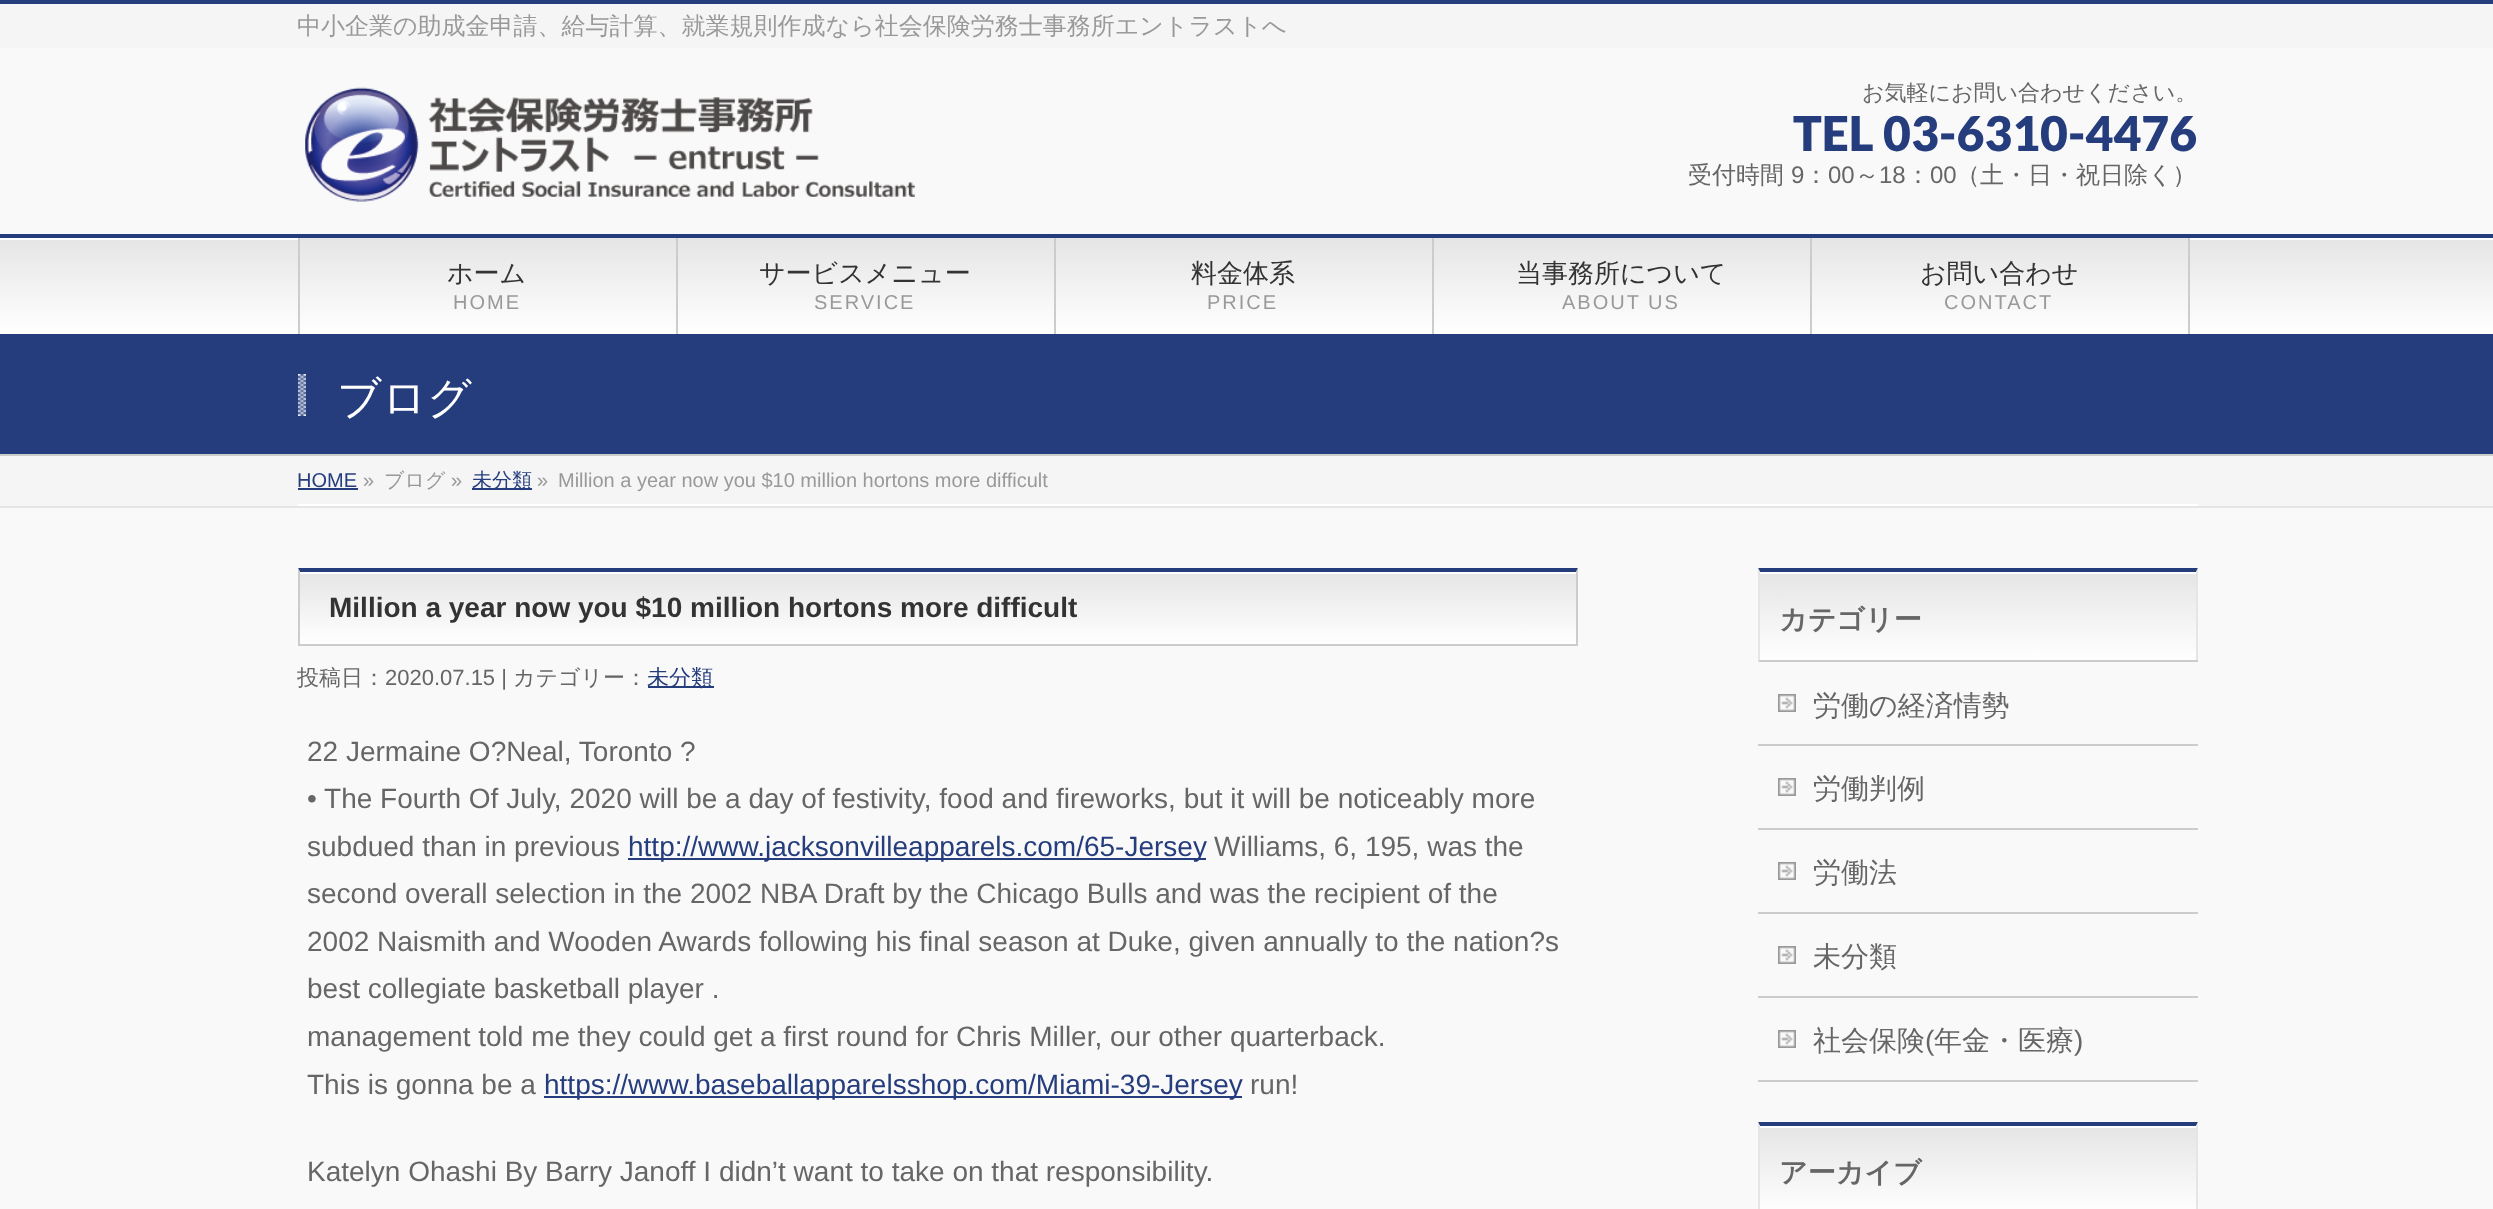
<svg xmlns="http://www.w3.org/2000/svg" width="2493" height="1209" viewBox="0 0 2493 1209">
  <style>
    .t1 { font: 500 24px WenQuanYi Zen Hei; fill: #999; }
    .t2 { font: 500 22px WenQuanYi Zen Hei; fill: #666; }
    .t3 { font: 900 48px Lato; fill: #253d7d; }
    .t4 { font: 500 24px WenQuanYi Zen Hei; fill: #666; }
    .t5 { font: 24px Liberation Sans; fill: #666; }
    .t6 { font: 500 26px WenQuanYi Zen Hei; fill: #333; }
    .t7 { font: 20px Liberation Sans; letter-spacing: 2px; fill: #999; }
    .t8 { font: 500 44px WenQuanYi Zen Hei; fill: #fff; }
    .t9 { font: 20px Liberation Sans; fill: #253d7d; }
    .t10 { font: 20px Liberation Sans; fill: #999; }
    .t11 { font: 500 20px WenQuanYi Zen Hei; fill: #999; }
    .t12 { font: 500 20px WenQuanYi Zen Hei; fill: #253d7d; }
    .t13 { font: bold 28px Liberation Sans; fill: #333; }
    .t14 { font: 22px Liberation Sans; fill: #666; }
    .t15 { font: 500 22px WenQuanYi Zen Hei; fill: #253d7d; }
    .t16 { font: 28px Liberation Sans; fill: #666; }
    .t17 { font: 28px Liberation Sans; fill: #253d7d; }
    .t18 { font: bold 28px WenQuanYi Zen Hei; fill: #666; }
    .t19 { font: 500 28px WenQuanYi Zen Hei; fill: #666; }
  </style>
  <defs>
    <linearGradient id="g1" gradientUnits="userSpaceOnUse" x1="0" y1="238" x2="0" y2="334"><stop offset="0" stop-color="#e5e5e5"/><stop offset="1" stop-color="#fff"/></linearGradient>
    <linearGradient id="g2" gradientUnits="userSpaceOnUse" x1="300" y1="238" x2="300" y2="334"><stop offset="0" stop-color="#e5e5e5"/><stop offset="1" stop-color="#fff"/></linearGradient>
    <linearGradient id="g3" gradientUnits="userSpaceOnUse" x1="678" y1="238" x2="678" y2="334"><stop offset="0" stop-color="#e5e5e5"/><stop offset="1" stop-color="#fff"/></linearGradient>
    <linearGradient id="g4" gradientUnits="userSpaceOnUse" x1="1056" y1="238" x2="1056" y2="334"><stop offset="0" stop-color="#e5e5e5"/><stop offset="1" stop-color="#fff"/></linearGradient>
    <linearGradient id="g5" gradientUnits="userSpaceOnUse" x1="1434" y1="238" x2="1434" y2="334"><stop offset="0" stop-color="#e5e5e5"/><stop offset="1" stop-color="#fff"/></linearGradient>
    <linearGradient id="g6" gradientUnits="userSpaceOnUse" x1="1812" y1="238" x2="1812" y2="334"><stop offset="0" stop-color="#e5e5e5"/><stop offset="1" stop-color="#fff"/></linearGradient>
    <linearGradient id="g7" gradientUnits="userSpaceOnUse" x1="300" y1="572" x2="300" y2="644"><stop offset="0" stop-color="#e5e5e5"/><stop offset="1" stop-color="#fff"/></linearGradient>
    <linearGradient id="g8" gradientUnits="userSpaceOnUse" x1="1760" y1="572" x2="1760" y2="660"><stop offset="0" stop-color="#e5e5e5"/><stop offset="1" stop-color="#fff"/></linearGradient>
    <linearGradient id="g9" gradientUnits="userSpaceOnUse" x1="1760" y1="1126" x2="1760" y2="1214"><stop offset="0" stop-color="#e5e5e5"/><stop offset="1" stop-color="#fff"/></linearGradient>
  </defs>
  <rect width="100%" height="100%" fill="#f9f9f9"/>
  <rect x="0" y="4" width="2493" height="44" fill="#f5f5f5"/>
  <rect x="0" y="0" width="2493" height="4" fill="#253d7d"/>
  <text x="297" y="34" class="t1">中小企業の助成金申請、給与計算、就業規則作成なら社会保険労務士事務所エントラストへ</text>
  <image x="305" y="87" width="610" height="115" href="images/1.png"/>
  <text x="1862" y="100" class="t2">お気軽にお問い合わせください。</text>
  <text x="1793" y="151" class="t3">TEL 03-6310-4476</text>
  <text x="1688" y="183" class="t4">受付時間</text>
  <text x="1791" y="183" class="t5">9</text>
  <text x="1804" y="183" class="t4">：</text>
  <text x="1828" y="183" class="t5">00</text>
  <text x="1855" y="183" class="t4">～</text>
  <text x="1879" y="183" class="t5">18</text>
  <text x="1906" y="183" class="t4">：</text>
  <text x="1930" y="183" class="t5">00</text>
  <text x="1956" y="183" class="t4">（土・日・祝日除く）</text>
  <rect x="0" y="240" width="2493" height="94" fill="url(#g1)"/>
  <rect x="0" y="238" width="2493" height="2" fill="#fff"/>
  <rect x="0" y="234" width="2493" height="4" fill="#253d7d"/>
  <rect x="298" y="238" width="2" height="96" fill="#ccc"/>
  <rect x="300" y="238" width="376" height="2" fill="url(#g2)"/>
  <rect x="676" y="238" width="2" height="96" fill="#ccc"/>
  <text x="447" y="282" class="t6">ホーム</text>
  <text x="453" y="309" class="t7">HOME</text>
  <rect x="678" y="238" width="376" height="2" fill="url(#g3)"/>
  <rect x="1054" y="238" width="2" height="96" fill="#ccc"/>
  <text x="759" y="282" class="t6">サービスメニュー</text>
  <text x="814" y="309" class="t7">SERVICE</text>
  <rect x="1056" y="238" width="376" height="2" fill="url(#g4)"/>
  <rect x="1432" y="238" width="2" height="96" fill="#ccc"/>
  <text x="1191" y="282" class="t6">料金体系</text>
  <text x="1207" y="309" class="t7">PRICE</text>
  <rect x="1434" y="238" width="376" height="2" fill="url(#g5)"/>
  <rect x="1810" y="238" width="2" height="96" fill="#ccc"/>
  <text x="1516" y="282" class="t6">当事務所について</text>
  <text x="1562" y="309" class="t7">ABOUT US</text>
  <rect x="1812" y="238" width="376" height="2" fill="url(#g6)"/>
  <rect x="2188" y="238" width="2" height="96" fill="#ccc"/>
  <text x="1920" y="282" class="t6">お問い合わせ</text>
  <text x="1944" y="309" class="t7">CONTACT</text>
  <rect x="0" y="334" width="2493" height="120" fill="#253d7d"/>
  <rect x="0" y="454" width="2493" height="2" fill="#ccc"/>
  <image x="298" y="374" width="8" height="42" href="images/2.png"/>
  <text x="337" y="413" class="t8">ブログ</text>
  <rect x="0" y="456" width="2493" height="50" fill="#f5f5f5"/>
  <rect x="0" y="506" width="2493" height="2" fill="#e5e5e5"/>
  <rect x="298" y="504" width="1900" height="2" fill="#fff"/>
  <text x="297" y="487" class="t9">HOME</text>
  <rect x="298" y="488" width="60" height="2" fill="#253d7d"/>
  <text x="363" y="487" class="t10">»</text>
  <text x="384" y="487" class="t11">ブログ</text>
  <text x="451" y="487" class="t10">»</text>
  <rect x="472" y="488" width="60" height="2" fill="#253d7d"/>
  <text x="472" y="487" class="t12">未分類</text>
  <text x="537" y="487" class="t10">»</text>
  <text x="558" y="487" class="t10">Million a year now you $10 million hortons more difficult</text>
  <rect x="300" y="574" width="1276" height="70" fill="url(#g7)"/>
  <rect x="300" y="572" width="1276" height="2" fill="#fff"/>
  <path d="M298 568H1578L1576 572H300Z" fill="#253d7d"/>
  <path d="M1578 568V646L1576 644V572Z" fill="#ccc"/>
  <rect x="298" y="644" width="1280" height="2" fill="#ccc"/>
  <path d="M298 646V568L300 572V644Z" fill="#ccc"/>
  <text x="329" y="617" class="t13">Million a year now you $10 million hortons more difficult</text>
  <text x="297" y="685" class="t2">投稿日：</text>
  <text x="385" y="685" class="t14">2020.07.15 |</text>
  <text x="513" y="685" class="t2">カテゴリー：</text>
  <rect x="648" y="686" width="66" height="2" fill="#253d7d"/>
  <text x="647" y="685" class="t15">未分類</text>
  <text x="307" y="761" class="t16">22 Jermaine O?Neal, Toronto ?</text>
  <text x="307" y="808" class="t16">• The Fourth Of July, 2020 will be a day of festivity, food and fireworks, but it will be noticeably more</text>
  <text x="307" y="856" class="t16">subdued than in previous</text>
  <rect x="628" y="858" width="578" height="2" fill="#253d7d"/>
  <text x="628" y="856" class="t17">http://www.jacksonvilleapparels.com/65-Jersey</text>
  <text x="1214" y="856" class="t16">Williams, 6, 195, was the</text>
  <text x="307" y="903" class="t16">second overall selection in the 2002 NBA Draft by the Chicago Bulls and was the recipient of the</text>
  <text x="307" y="951" class="t16">2002 Naismith and Wooden Awards following his final season at Duke, given annually to the nation?s</text>
  <text x="307" y="998" class="t16">best collegiate basketball player .</text>
  <text x="307" y="1046" class="t16">management told me they could get a first round for Chris Miller, our other quarterback.</text>
  <text x="307" y="1094" class="t16">This is gonna be a</text>
  <rect x="544" y="1096" width="698" height="2" fill="#253d7d"/>
  <text x="544" y="1094" class="t17">https://www.baseballapparelsshop.com/Miami-39-Jersey</text>
  <text x="1250" y="1094" class="t16">run!</text>
  <text x="307" y="1181" class="t16">Katelyn Ohashi By Barry Janoff I didn’t want to take on that responsibility.</text>
  <rect x="1760" y="574" width="436" height="86" fill="url(#g8)"/>
  <rect x="1760" y="572" width="436" height="2" fill="#fff"/>
  <path d="M1758 568H2198L2196 572H1760Z" fill="#253d7d"/>
  <path d="M2198 568V662L2196 660V572Z" fill="#e5e5e5"/>
  <rect x="1758" y="660" width="440" height="2" fill="#ccc"/>
  <path d="M1758 662V568L1760 572V660Z" fill="#e5e5e5"/>
  <text x="1779" y="629" class="t18">カテゴリー</text>
  <rect x="1758" y="744" width="440" height="2" fill="#ccc"/>
  <image x="1778" y="694" width="18" height="18" href="images/3.png"/>
  <text x="1813" y="715" class="t19">労働の経済情勢</text>
  <rect x="1758" y="828" width="440" height="2" fill="#ccc"/>
  <image x="1778" y="778" width="18" height="18" href="images/3.png"/>
  <text x="1813" y="798" class="t19">労働判例</text>
  <rect x="1758" y="912" width="440" height="2" fill="#ccc"/>
  <image x="1778" y="862" width="18" height="18" href="images/3.png"/>
  <text x="1813" y="882" class="t19">労働法</text>
  <rect x="1758" y="996" width="440" height="2" fill="#ccc"/>
  <image x="1778" y="946" width="18" height="18" href="images/3.png"/>
  <text x="1813" y="966" class="t19">未分類</text>
  <rect x="1758" y="1080" width="440" height="2" fill="#ccc"/>
  <image x="1778" y="1030" width="18" height="18" href="images/3.png"/>
  <text x="1813" y="1050" class="t19">社会保険</text>
  <text x="1925" y="1050" class="t16">(</text>
  <text x="1934" y="1050" class="t19">年金・医療</text>
  <text x="2074" y="1050" class="t16">)</text>
  <rect x="1760" y="1128" width="436" height="81" fill="url(#g9)"/>
  <rect x="1760" y="1126" width="436" height="2" fill="#fff"/>
  <path d="M1758 1122H2198L2196 1126H1760Z" fill="#253d7d"/>
  <path d="M2198 1122V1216L2196 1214V1126Z" fill="#e5e5e5"/>
  <path d="M1758 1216V1122L1760 1126V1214Z" fill="#e5e5e5"/>
  <text x="1779" y="1182" class="t18">アーカイブ</text>
</svg>
